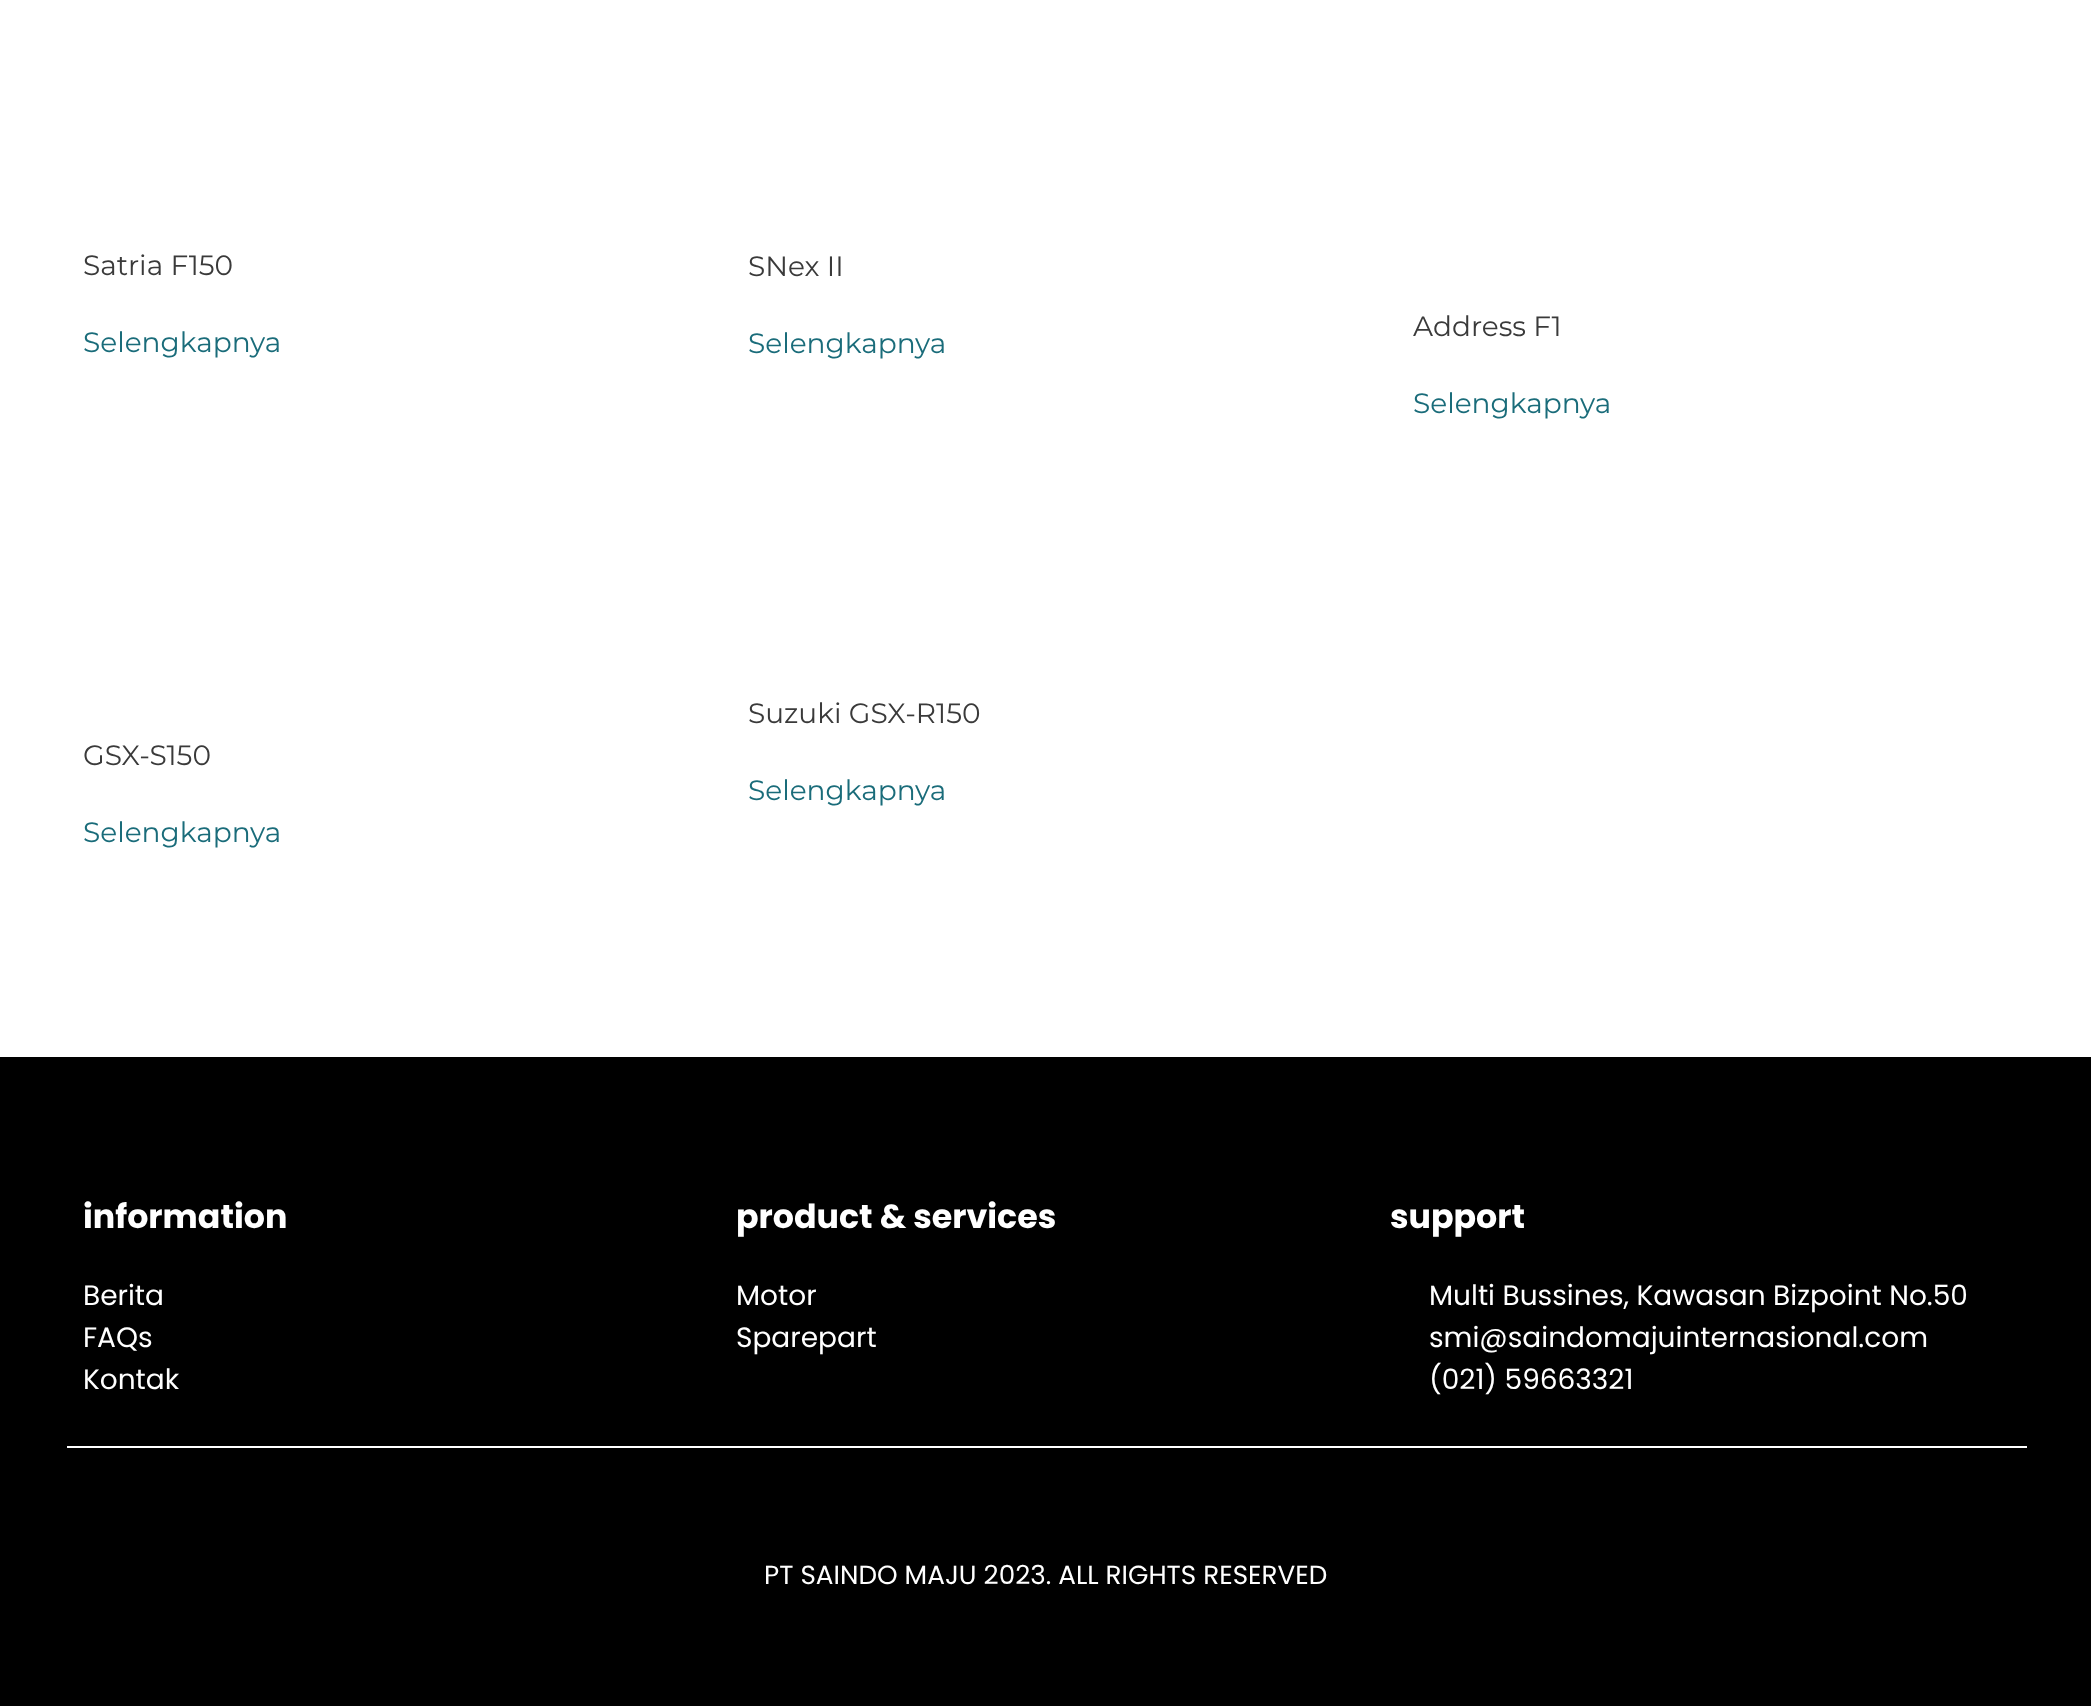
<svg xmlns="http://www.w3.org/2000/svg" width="2091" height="1706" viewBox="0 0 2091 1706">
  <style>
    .t1 { font: 28px Montserrat; fill: #3a3a3a; }
    .t2 { font: 28px Montserrat; fill: #1a6c7a; }
    .t3 { font: bold 33.25px Poppins; fill: #fff; }
    .t4 { font: 28px Poppins; fill: #fff; }
    .t5 { font: 26.25px Poppins; fill: #fff; }
  </style>
  <rect width="100%" height="100%" fill="#fff"/>
  <text x="83" y="275" class="t1">Satria F150</text>
  <text x="83" y="352" class="t2">Selengkapnya</text>
  <text x="748" y="276" class="t1">SNex II</text>
  <text x="748" y="353" class="t2">Selengkapnya</text>
  <text x="1413" y="336" class="t1">Address F1</text>
  <text x="1413" y="413" class="t2">Selengkapnya</text>
  <text x="83" y="765" class="t1">GSX-S150</text>
  <text x="83" y="842" class="t2">Selengkapnya</text>
  <text x="748" y="723" class="t1">Suzuki GSX-R150</text>
  <text x="748" y="800" class="t2">Selengkapnya</text>
  <rect x="0" y="1057" width="2091" height="649" fill="#000"/>
  <text x="83" y="1228" class="t3">information</text>
  <text x="83" y="1305" class="t4">Berita</text>
  <text x="83" y="1347" class="t4">FAQs</text>
  <text x="83" y="1389" class="t4">Kontak</text>
  <text x="736" y="1228" class="t3">product &amp; services</text>
  <text x="736" y="1305" class="t4">Motor</text>
  <text x="736" y="1347" class="t4">Sparepart</text>
  <text x="1390" y="1228" class="t3">support</text>
  <text x="1429" y="1305" class="t4">Multi Bussines, Kawasan Bizpoint No.50</text>
  <text x="1429" y="1347" class="t4">smi@saindomajuinternasional.com</text>
  <text x="1429" y="1389" class="t4">(021) 59663321</text>
  <rect x="67" y="1446" width="1960" height="2" fill="#fff"/>
  <text x="764" y="1584" class="t5">PT SAINDO MAJU 2023. ALL RIGHTS RESERVED</text>
</svg>
